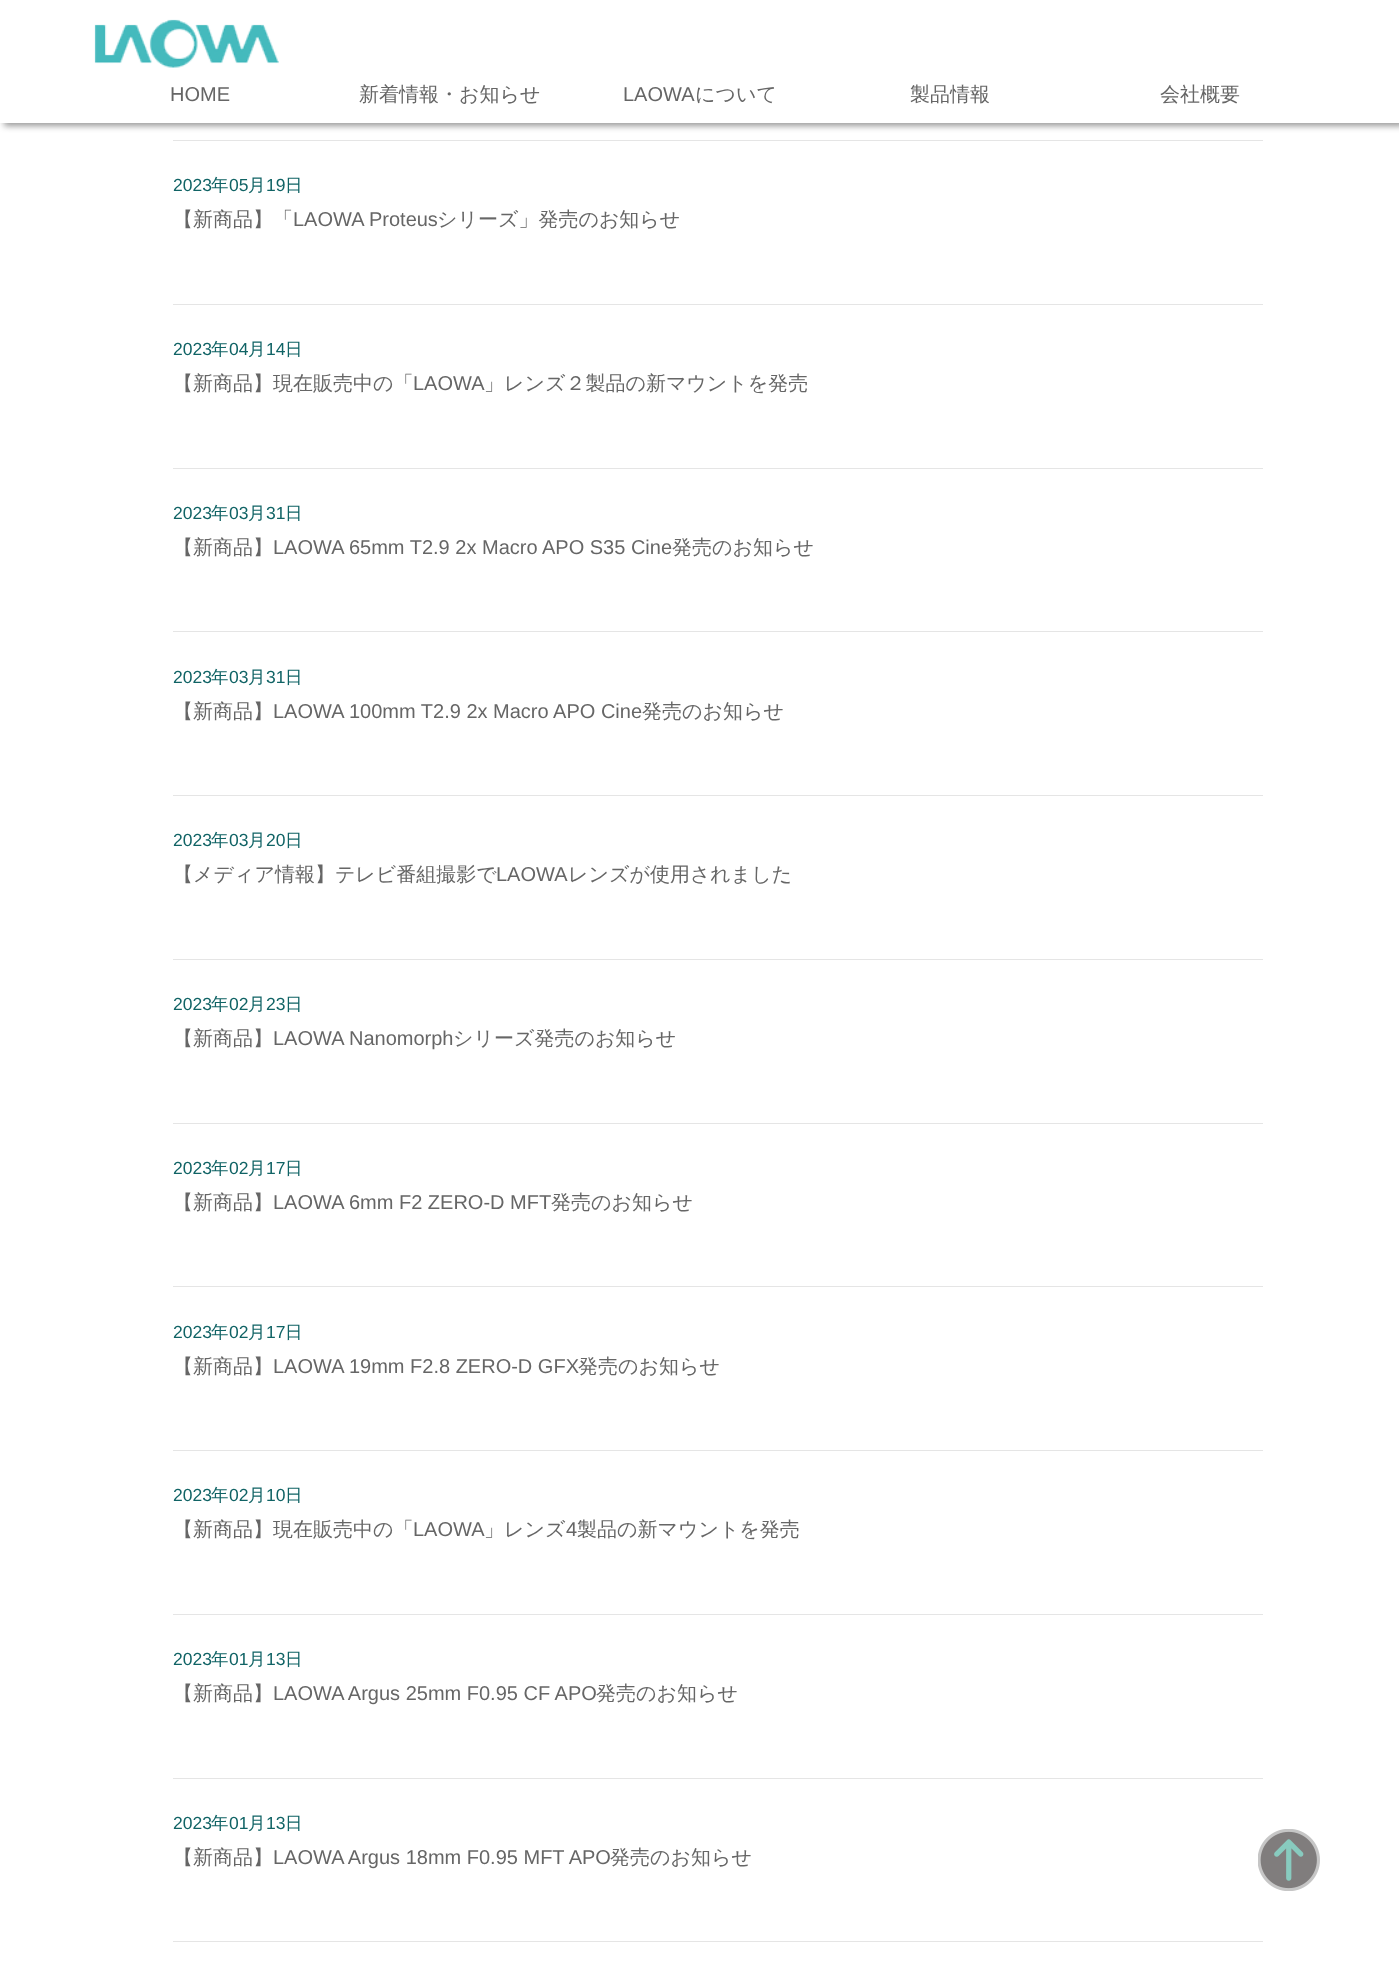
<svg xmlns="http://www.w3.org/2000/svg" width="1399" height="1971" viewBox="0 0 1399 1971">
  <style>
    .t1 { font: 20px Liberation Sans; fill: #666; }
    .t2 { font: 500 20px WenQuanYi Zen Hei; fill: #666; }
    .t3 { font: 17.5px Liberation Sans; fill: #106365; }
    .t4 { font: 500 17.5px WenQuanYi Zen Hei; fill: #106365; }
  </style>
  <rect width="100%" height="100%" fill="#fff"/>
  <rect x="4" y="4" width="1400" height="122" fill="#00000066" filter="blur(3px)"/>
  <rect x="0" y="0" width="1399" height="123" fill="#fff"/>
  <image x="94" y="19" width="185" height="49" href="images/1.png"/>
  <text x="170" y="101" class="t1">HOME</text>
  <text x="359" y="101" class="t2">新着情報・お知らせ</text>
  <text x="623" y="101" class="t1">LAOWA</text>
  <text x="695" y="101" class="t2">について</text>
  <text x="910" y="101" class="t2">製品情報</text>
  <text x="1160" y="101" class="t2">会社概要</text>
  <rect x="173" y="140" width="1090" height="1" fill="#e5e5e5"/>
  <rect x="173" y="304" width="1090" height="1" fill="#e5e5e5"/>
  <text x="173" y="191" class="t3">2023</text>
  <text x="211" y="191" class="t4">年</text>
  <text x="229" y="191" class="t3">05</text>
  <text x="248" y="191" class="t4">月</text>
  <text x="266" y="191" class="t3">19</text>
  <text x="285" y="191" class="t4">日</text>
  <text x="173" y="226" class="t2">【新商品】「</text>
  <text x="293" y="226" class="t1">LAOWA Proteus</text>
  <text x="437" y="226" class="t2">シリーズ」発売のお知らせ</text>
  <rect x="173" y="468" width="1090" height="1" fill="#e5e5e5"/>
  <text x="173" y="355" class="t3">2023</text>
  <text x="211" y="355" class="t4">年</text>
  <text x="229" y="355" class="t3">04</text>
  <text x="248" y="355" class="t4">月</text>
  <text x="266" y="355" class="t3">14</text>
  <text x="285" y="355" class="t4">日</text>
  <text x="173" y="390" class="t2">【新商品】現在販売中の「</text>
  <text x="413" y="390" class="t1">LAOWA</text>
  <text x="484" y="390" class="t2">」レンズ２製品の新マウントを発売</text>
  <rect x="173" y="631" width="1090" height="1" fill="#e5e5e5"/>
  <text x="173" y="519" class="t3">2023</text>
  <text x="211" y="519" class="t4">年</text>
  <text x="229" y="519" class="t3">03</text>
  <text x="248" y="519" class="t4">月</text>
  <text x="266" y="519" class="t3">31</text>
  <text x="285" y="519" class="t4">日</text>
  <text x="173" y="554" class="t2">【新商品】</text>
  <text x="273" y="554" class="t1">LAOWA 65mm T2.9 2x Macro APO S35 Cine</text>
  <text x="672" y="554" class="t2">発売のお知らせ</text>
  <rect x="173" y="795" width="1090" height="1" fill="#e5e5e5"/>
  <text x="173" y="683" class="t3">2023</text>
  <text x="211" y="683" class="t4">年</text>
  <text x="229" y="683" class="t3">03</text>
  <text x="248" y="683" class="t4">月</text>
  <text x="266" y="683" class="t3">31</text>
  <text x="285" y="683" class="t4">日</text>
  <text x="173" y="718" class="t2">【新商品】</text>
  <text x="273" y="718" class="t1">LAOWA 100mm T2.9 2x Macro APO Cine</text>
  <text x="642" y="718" class="t2">発売のお知らせ</text>
  <rect x="173" y="959" width="1090" height="1" fill="#e5e5e5"/>
  <text x="173" y="846" class="t3">2023</text>
  <text x="211" y="846" class="t4">年</text>
  <text x="229" y="846" class="t3">03</text>
  <text x="248" y="846" class="t4">月</text>
  <text x="266" y="846" class="t3">20</text>
  <text x="285" y="846" class="t4">日</text>
  <text x="173" y="881" class="t2">【メディア情報】テレビ番組撮影で</text>
  <text x="496" y="881" class="t1">LAOWA</text>
  <text x="568" y="881" class="t2">レンズが使用されました</text>
  <rect x="173" y="1123" width="1090" height="1" fill="#e5e5e5"/>
  <text x="173" y="1010" class="t3">2023</text>
  <text x="211" y="1010" class="t4">年</text>
  <text x="229" y="1010" class="t3">02</text>
  <text x="248" y="1010" class="t4">月</text>
  <text x="266" y="1010" class="t3">23</text>
  <text x="285" y="1010" class="t4">日</text>
  <text x="173" y="1045" class="t2">【新商品】</text>
  <text x="273" y="1045" class="t1">LAOWA Nanomorph</text>
  <text x="453" y="1045" class="t2">シリーズ発売のお知らせ</text>
  <rect x="173" y="1286" width="1090" height="1" fill="#e5e5e5"/>
  <text x="173" y="1174" class="t3">2023</text>
  <text x="211" y="1174" class="t4">年</text>
  <text x="229" y="1174" class="t3">02</text>
  <text x="248" y="1174" class="t4">月</text>
  <text x="266" y="1174" class="t3">17</text>
  <text x="285" y="1174" class="t4">日</text>
  <text x="173" y="1209" class="t2">【新商品】</text>
  <text x="273" y="1209" class="t1">LAOWA 6mm F2 ZERO-D MFT</text>
  <text x="551" y="1209" class="t2">発売のお知らせ</text>
  <rect x="173" y="1450" width="1090" height="1" fill="#e5e5e5"/>
  <text x="173" y="1338" class="t3">2023</text>
  <text x="211" y="1338" class="t4">年</text>
  <text x="229" y="1338" class="t3">02</text>
  <text x="248" y="1338" class="t4">月</text>
  <text x="266" y="1338" class="t3">17</text>
  <text x="285" y="1338" class="t4">日</text>
  <text x="173" y="1373" class="t2">【新商品】</text>
  <text x="273" y="1373" class="t1">LAOWA 19mm F2.8 ZERO-D GFX</text>
  <text x="578" y="1373" class="t2">発売のお知らせ</text>
  <rect x="173" y="1614" width="1090" height="1" fill="#e5e5e5"/>
  <text x="173" y="1501" class="t3">2023</text>
  <text x="211" y="1501" class="t4">年</text>
  <text x="229" y="1501" class="t3">02</text>
  <text x="248" y="1501" class="t4">月</text>
  <text x="266" y="1501" class="t3">10</text>
  <text x="285" y="1501" class="t4">日</text>
  <text x="173" y="1536" class="t2">【新商品】現在販売中の「</text>
  <text x="413" y="1536" class="t1">LAOWA</text>
  <text x="484" y="1536" class="t2">」レンズ</text>
  <text x="566" y="1536" class="t1">4</text>
  <text x="577" y="1536" class="t2">製品の新マウントを発売</text>
  <rect x="173" y="1778" width="1090" height="1" fill="#e5e5e5"/>
  <text x="173" y="1665" class="t3">2023</text>
  <text x="211" y="1665" class="t4">年</text>
  <text x="229" y="1665" class="t3">01</text>
  <text x="248" y="1665" class="t4">月</text>
  <text x="266" y="1665" class="t3">13</text>
  <text x="285" y="1665" class="t4">日</text>
  <text x="173" y="1700" class="t2">【新商品】</text>
  <text x="273" y="1700" class="t1">LAOWA Argus 25mm F0.95 CF APO</text>
  <text x="596" y="1700" class="t2">発売のお知らせ</text>
  <rect x="173" y="1941" width="1090" height="1" fill="#e5e5e5"/>
  <text x="173" y="1829" class="t3">2023</text>
  <text x="211" y="1829" class="t4">年</text>
  <text x="229" y="1829" class="t3">01</text>
  <text x="248" y="1829" class="t4">月</text>
  <text x="266" y="1829" class="t3">13</text>
  <text x="285" y="1829" class="t4">日</text>
  <text x="173" y="1864" class="t2">【新商品】</text>
  <text x="273" y="1864" class="t1">LAOWA Argus 18mm F0.95 MFT APO</text>
  <text x="610" y="1864" class="t2">発売のお知らせ</text>
  <image x="1258" y="1829" width="62" height="62" href="images/2.png"/>
</svg>
